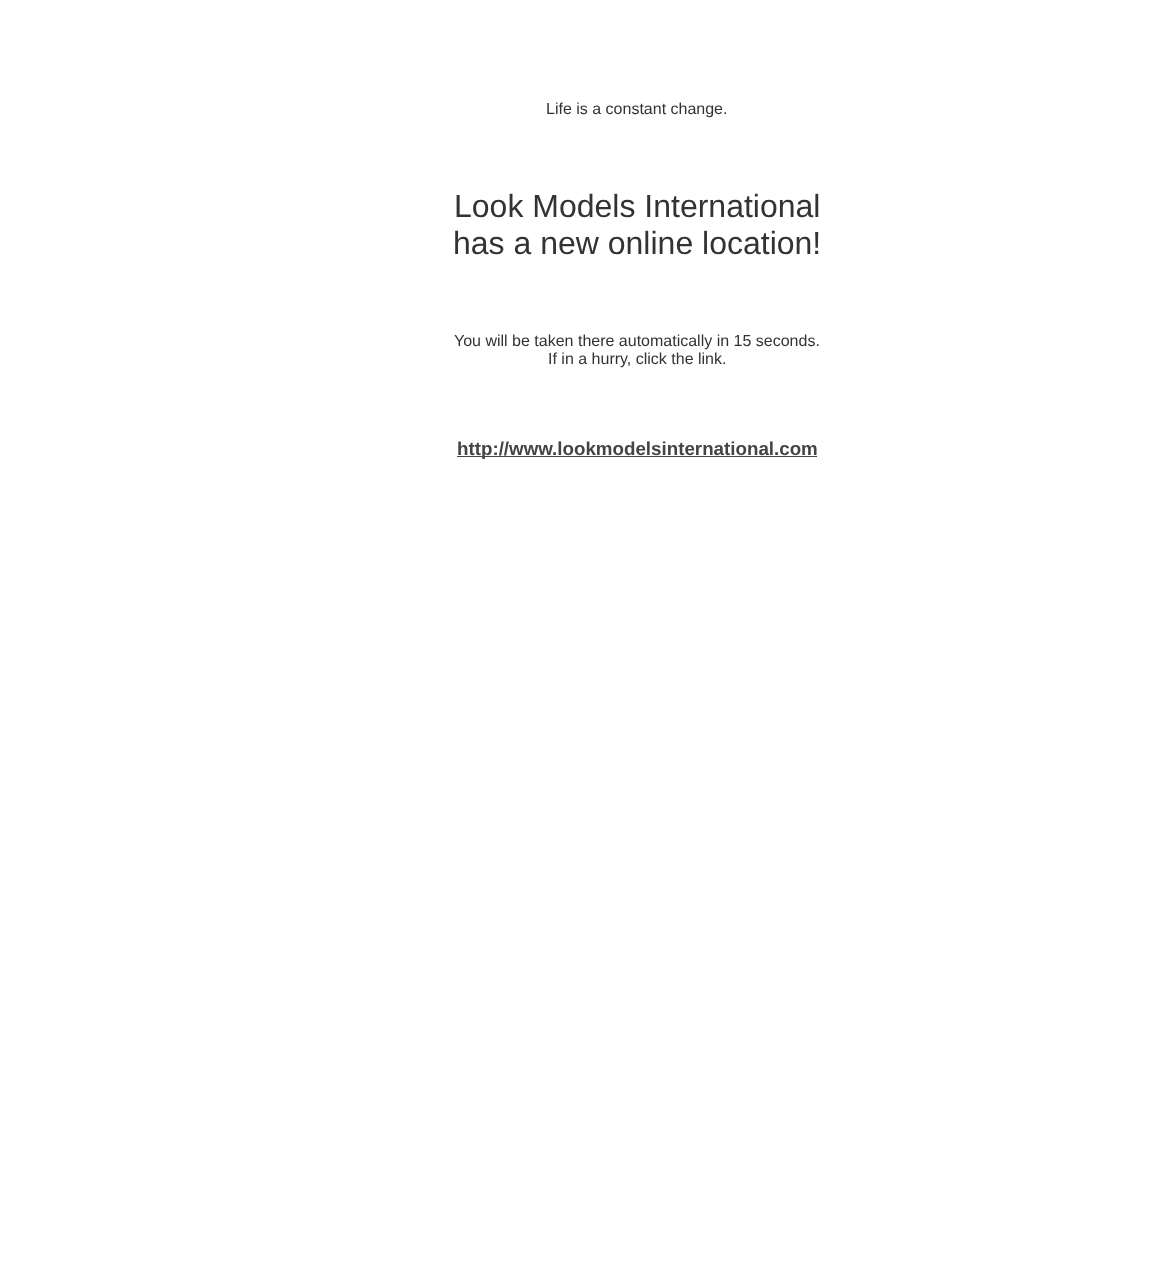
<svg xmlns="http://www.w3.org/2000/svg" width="1174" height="1266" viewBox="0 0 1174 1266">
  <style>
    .t1 { font: 16px Liberation Sans; fill: #333; }
    .t2 { font: 32px Liberation Sans; fill: #333; }
    .t3 { font: bold 18.75px Liberation Sans; fill: #444; }
  </style>
  <rect width="100%" height="100%" fill="#fff"/>
  <text x="546" y="114" class="t1">Life is a constant change.</text>
  <text x="454" y="217" class="t2">Look Models International</text>
  <text x="453" y="254" class="t2">has a new online location!</text>
  <text x="454" y="346" class="t1">You will be taken there automatically in 15 seconds.</text>
  <text x="548" y="364" class="t1">If in a hurry, click the link.</text>
  <rect x="457" y="456" width="360" height="1" fill="#444"/>
  <text x="457" y="455" class="t3">http://www.lookmodelsinternational.com</text>
</svg>
